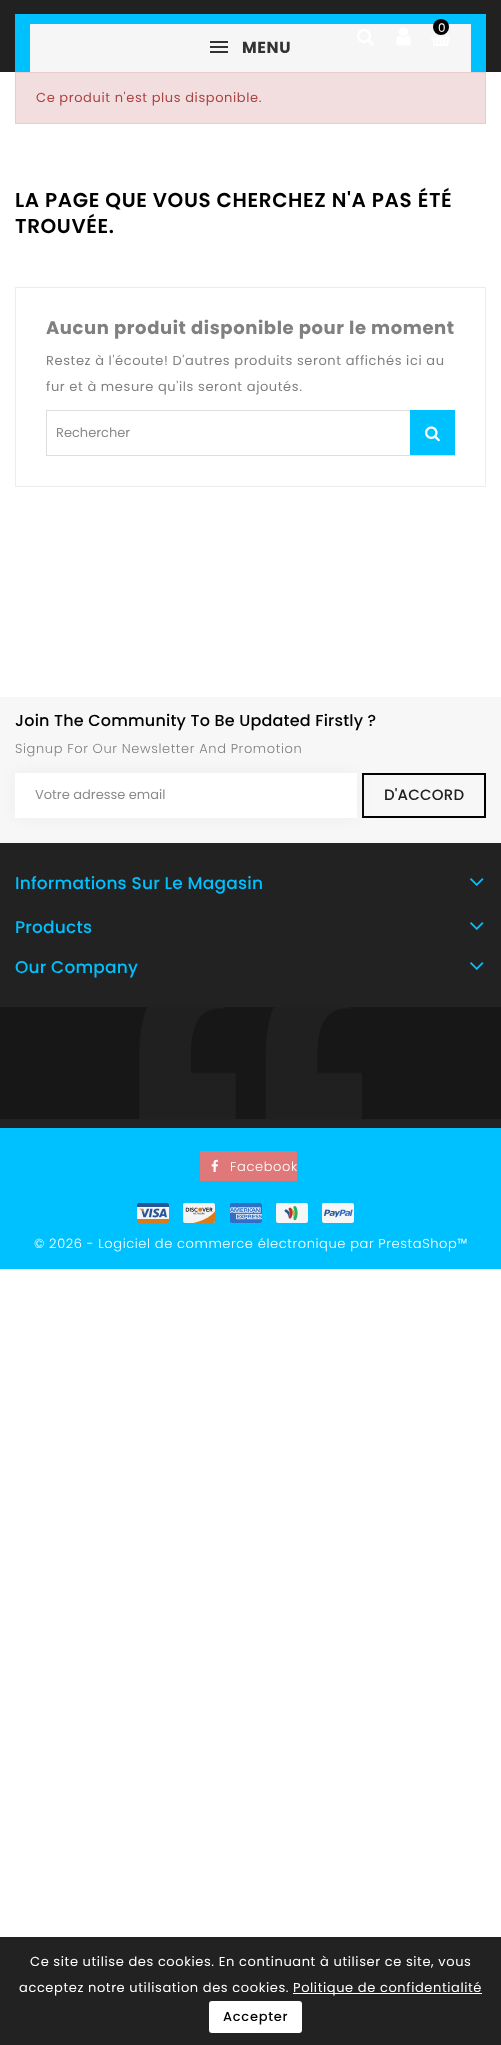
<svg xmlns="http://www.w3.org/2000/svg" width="501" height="2045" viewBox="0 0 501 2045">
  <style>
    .t1 { font: 12px Poppins; letter-spacing: 0.75px; fill: #fff; }
    .t2 { font: bold 16px Poppins; letter-spacing: 0.6px; fill: #333; }
    .t3 { font: 13px Poppins; letter-spacing: 0.6px; fill: #a94442; }
    .t4 { font: 600 20px Poppins; letter-spacing: 0.6px; fill: #000; }
    .t5 { font: bold 18px Poppins; letter-spacing: 0.6px; fill: #808080; }
    .t6 { font: 13px Poppins; letter-spacing: 0.6px; fill: #808080; }
    .t7 { font: 13px Poppins; fill: #8a8a8a; }
    .t8 { font: 500 16px Poppins; letter-spacing: 0.2px; fill: #000; }
    .t9 { font: 300 13px Poppins; letter-spacing: 0.6px; fill: #808080; }
    .t10 { font: 500 15px Poppins; letter-spacing: 0.2px; fill: #212121; }
    .t11 { font: 500 17px Poppins; letter-spacing: 0.2px; fill: #00c1ff; }
    .t12 { font: 13px Poppins; letter-spacing: 0.6px; fill: #fff; }
    .t13 { font: 500 13px Poppins; letter-spacing: 0.75px; fill: #000; }
    .t14 { font: 300 13px Poppins; letter-spacing: 0.6px; fill: #fff; }
  </style>
  <rect width="100%" height="100%" fill="#fff"/>
  <rect x="0" y="0" width="501" height="72" fill="#212121"/>
  <rect x="15" y="14" width="471" height="58" fill="#00c1ff"/>
  <rect x="30" y="24" width="441" height="48" fill="#f6f6f6"/>
  <image x="357" y="29" width="17" height="17" href="images/1.png"/>
  <image x="396" y="27" width="15" height="19" href="images/2.png"/>
  <image x="431" y="30" width="19" height="16" href="images/3.png"/>
  <circle cx="441" cy="27" r="8" fill="#000"/>
  <text x="438" y="32" class="t1">0</text>
  <rect x="210" y="41" width="18" height="2" fill="#333"/>
  <rect x="210" y="46" width="18" height="2" fill="#333"/>
  <rect x="210" y="51" width="18" height="2" fill="#333"/>
  <text x="242" y="53" class="t2">MENU</text>
  <rect x="15.5" y="72.5" width="470" height="51" fill="#f2dede" stroke="#ebcccc"/>
  <text x="36" y="102" class="t3">Ce produit n'est plus disponible.</text>
  <text x="15" y="207" class="t4">LA PAGE QUE VOUS CHERCHEZ N'A PAS ÉTÉ</text>
  <text x="15" y="233" class="t4">TROUVÉE.</text>
  <rect x="15.5" y="287.5" width="470" height="199" fill="none" stroke="#ededed"/>
  <text x="46" y="334" class="t5">Aucun produit disponible pour le moment</text>
  <text x="46" y="365" class="t6">Restez à l'écoute! D'autres produits seront affichés ici au</text>
  <text x="46" y="391" class="t6">fur et à mesure qu'ils seront ajoutés.</text>
  <rect x="46.5" y="410.5" width="408" height="45" fill="none" stroke="#ddd"/>
  <text x="56" y="437" class="t7">Rechercher</text>
  <rect x="410" y="410" width="45" height="45" fill="#00c1ff"/>
  <image x="425" y="426" width="15" height="16" href="images/4.png"/>
  <rect x="0" y="697" width="501" height="146" fill="#f7f7f7"/>
  <text x="15" y="726" class="t8">Join The Community To Be Updated Firstly ?</text>
  <text x="15" y="753" class="t9">Signup For Our Newsletter And Promotion</text>
  <rect x="363" y="774" width="122" height="43" fill="none" stroke="#000" stroke-width="2"/>
  <rect x="15" y="773" width="342" height="45" fill="#d7d4d440" filter="blur(7.5px)"/>
  <rect x="15" y="773" width="342" height="45" fill="#fff"/>
  <text x="35" y="799" class="t7">Votre adresse email</text>
  <text x="384" y="800" class="t10">D'ACCORD</text>
  <rect x="0" y="843" width="501" height="285" fill="#222"/>
  <text x="15" y="889" class="t11">Informations Sur Le Magasin</text>
  <image x="470" y="878" width="14" height="8" href="images/5.png"/>
  <text x="15" y="933" class="t11">Products</text>
  <image x="470" y="922" width="14" height="8" href="images/5.png"/>
  <text x="15" y="973" class="t11">Our Company</text>
  <image x="470" y="962" width="14" height="8" href="images/5.png"/>
  <rect x="0" y="1007" width="501" height="112" fill="#171717"/>
  <image x="139" y="1007" width="223" height="112" href="images/6.png"/>
  <rect x="0" y="1937" width="501" height="108" fill="#222"/>
  <text x="30" y="1966" class="t12">Ce site utilise des cookies. En continuant à utiliser ce site, vous</text>
  <text x="19" y="1992" class="t12">acceptez notre utilisation des cookies.</text>
  <rect x="293" y="1993" width="189" height="1" fill="#fff"/>
  <text x="293" y="1992" class="t12">Politique de confidentialité</text>
  <rect x="209" y="2001" width="93" height="32" rx="3" fill="#fff"/>
  <text x="223" y="2021" class="t13">Accepter</text>
  <rect x="0" y="1128" width="501" height="141" fill="#00c1ff"/>
  <rect x="200" y="1151" width="97" height="30" fill="#df7878"/>
  <image x="211" y="1159" width="7" height="13" href="images/7.png"/>
  <text x="230" y="1171" class="t14">Facebook</text>
  <image x="137" y="1203" width="32" height="20" href="images/8.png"/>
  <image x="183" y="1203" width="32" height="20" href="images/9.png"/>
  <image x="230" y="1203" width="32" height="20" href="images/10.png"/>
  <image x="276" y="1203" width="32" height="20" href="images/11.png"/>
  <image x="322" y="1203" width="32" height="20" href="images/12.png"/>
  <text x="34" y="1248" class="t14">© 2026 - Logiciel de commerce électronique par PrestaShop™</text>
</svg>
